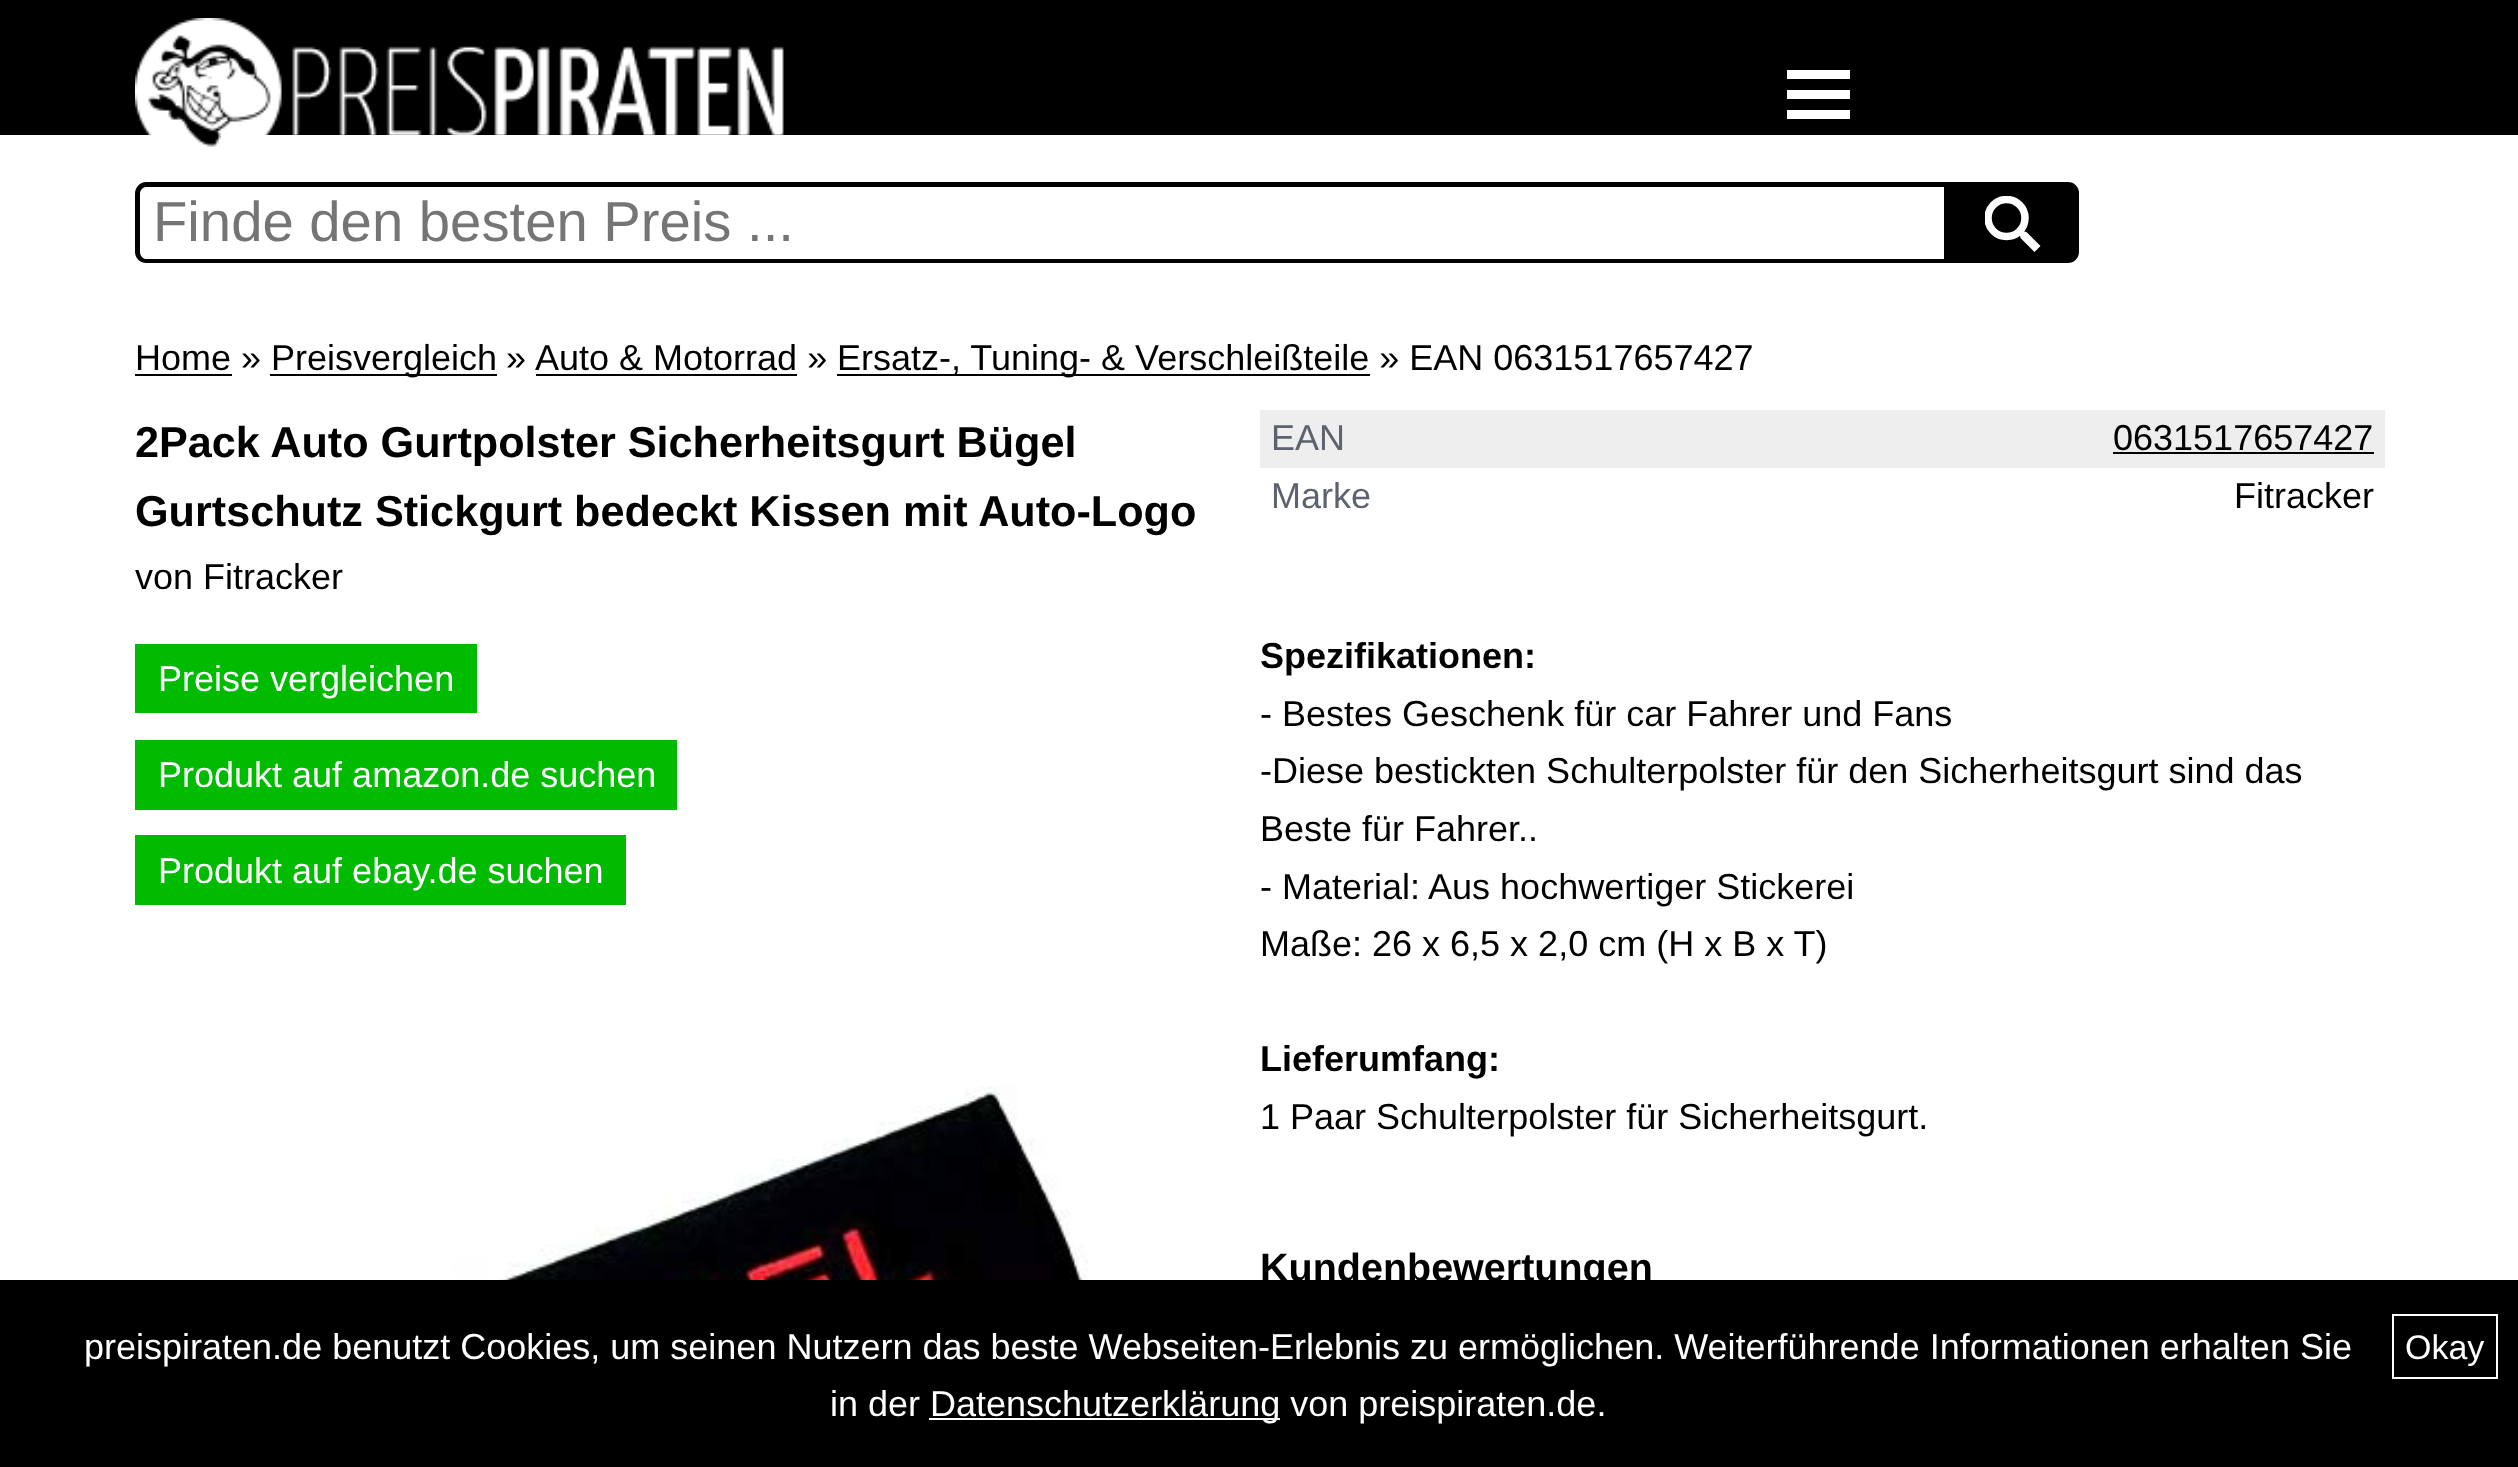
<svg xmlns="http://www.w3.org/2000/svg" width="2518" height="1467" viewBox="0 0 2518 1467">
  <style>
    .t1 { font: 56.25px Liberation Sans; fill: #757575; }
    .t2 { font: 36px Liberation Sans; fill: #000; }
    .t3 { font: bold 43.2px Liberation Sans; fill: #000; }
    .t4 { font: 36px Liberation Sans; fill: #fff; }
    .t5 { font: 36px Liberation Sans; fill: #5d636e; }
    .t6 { font: bold 36px Liberation Sans; fill: #000; }
    .t7 { font: bold 39.5px Liberation Sans; fill: #000; }
    .t8 { font: 34px Liberation Sans; fill: #fff; }
  </style>
  <defs>
    <clipPath id="clip1"><rect x="1985" y="196" width="56" height="56"/></clipPath>
  </defs>
  <rect width="100%" height="100%" fill="#fff"/>
  <rect x="0" y="0" width="2518" height="135" fill="#000"/>
  <rect x="1787" y="110" width="63" height="9" fill="#fff"/>
  <rect x="1787" y="70" width="63" height="9" fill="#fff"/>
  <rect x="1787" y="90" width="63" height="9" fill="#fff"/>
  <image x="135" y="18" width="649" height="129" href="images/1.png"/>
  <path d="M146 182H1944V263H146C140 263 135 258 135 252V194C135 187 140 182 146 182ZM146 187H1944V259H146C143 259 140 256 140 252V194C140 190 143 187 146 187Z" fill="#000" fill-rule="evenodd"/>
  <text x="153" y="241" class="t1">Finde den besten Preis ...</text>
  <path d="M1945 183H2068C2073.5 183 2078 187.5 2078 193V252C2078 257.5 2073.5 262 2068 262H1945Z" fill="#000" stroke="#000" stroke-width="2"/>
  <g clip-path="url(#clip1)">
    <circle cx="2006.5" cy="218" r="18.5" fill="none" stroke="#fff" stroke-width="7.5"/>
  </g>
  <path d="M2025 230.5L2024 231.5L2026.5 232L2040.5 246L2034.5 252L2020.5 238L2020 235.5L2019 236.5V236L2024.5 230Z" fill="#fff" fill-rule="evenodd"/>
  <text x="135" y="370" class="t2">Home »</text>
  <rect x="135" y="374" width="97" height="2" fill="#000"/>
  <rect x="270" y="374" width="227" height="2" fill="#000"/>
  <text x="271" y="370" class="t2">Preisvergleich</text>
  <text x="506" y="370" class="t2">»</text>
  <text x="535" y="370" class="t2">Auto &amp; Motorrad »</text>
  <rect x="536" y="374" width="261" height="2" fill="#000"/>
  <rect x="837" y="374" width="533" height="2" fill="#000"/>
  <text x="837" y="370" class="t2">Ersatz-, Tuning- &amp; Verschleißteile » EAN 0631517657427</text>
  <text x="135" y="457" class="t3">2Pack Auto Gurtpolster Sicherheitsgurt Bügel</text>
  <text x="135" y="526" class="t3">Gurtschutz Stickgurt bedeckt Kissen mit Auto-Logo</text>
  <text x="135" y="589" class="t2">von Fitracker</text>
  <rect x="135" y="644" width="342" height="69" fill="#0b0"/>
  <text x="158" y="691" class="t4">Preise vergleichen</text>
  <rect x="135" y="740" width="542" height="70" fill="#0b0"/>
  <text x="158" y="787" class="t4">Produkt auf amazon.de suchen</text>
  <rect x="135" y="835" width="491" height="70" fill="#0b0"/>
  <text x="158" y="883" class="t4">Produkt auf ebay.de suchen</text>
  <image x="153" y="1086" width="1040" height="194" href="images/2.png"/>
  <rect x="1260" y="410" width="1125" height="58" fill="#eee"/>
  <text x="1271" y="450" class="t5">EAN</text>
  <text x="2113" y="450" class="t2">0631517657427</text>
  <rect x="2113" y="452" width="261" height="2" fill="#000"/>
  <text x="1271" y="508" class="t5">Marke</text>
  <text x="2234" y="508" class="t2">Fitracker</text>
  <text x="1260" y="668" class="t6">Spezifikationen:</text>
  <text x="1260" y="726" class="t2">- Bestes Geschenk für car Fahrer und Fans</text>
  <text x="1260" y="783" class="t2">-Diese bestickten Schulterpolster für den Sicherheitsgurt sind das</text>
  <text x="1260" y="841" class="t2">Beste für Fahrer..</text>
  <text x="1260" y="899" class="t2">- Material: Aus hochwertiger Stickerei</text>
  <text x="1260" y="956" class="t2">Maße: 26 x 6,5 x 2,0 cm (H x B x T)</text>
  <text x="1260" y="1071" class="t6">Lieferumfang:</text>
  <text x="1260" y="1129" class="t2">1 Paar Schulterpolster für Sicherheitsgurt.</text>
  <text x="1260" y="1281" class="t7">Kundenbewertungen</text>
  <rect x="0" y="1280" width="2518" height="187" fill="#000"/>
  <text x="84" y="1359" class="t4">preispiraten.de benutzt Cookies, um seinen Nutzern das beste Webseiten-Erlebnis zu ermöglichen. Weiterführende Informationen erhalten Sie</text>
  <text x="830" y="1416" class="t4">in der</text>
  <rect x="929" y="1418" width="351" height="2" fill="#fff"/>
  <text x="930" y="1416" class="t4">Datenschutzerklärung von preispiraten.de.</text>
  <rect x="2393" y="1315" width="104" height="63" fill="none" stroke="#fff" stroke-width="2"/>
  <text x="2405" y="1359" class="t8">Okay</text>
</svg>
